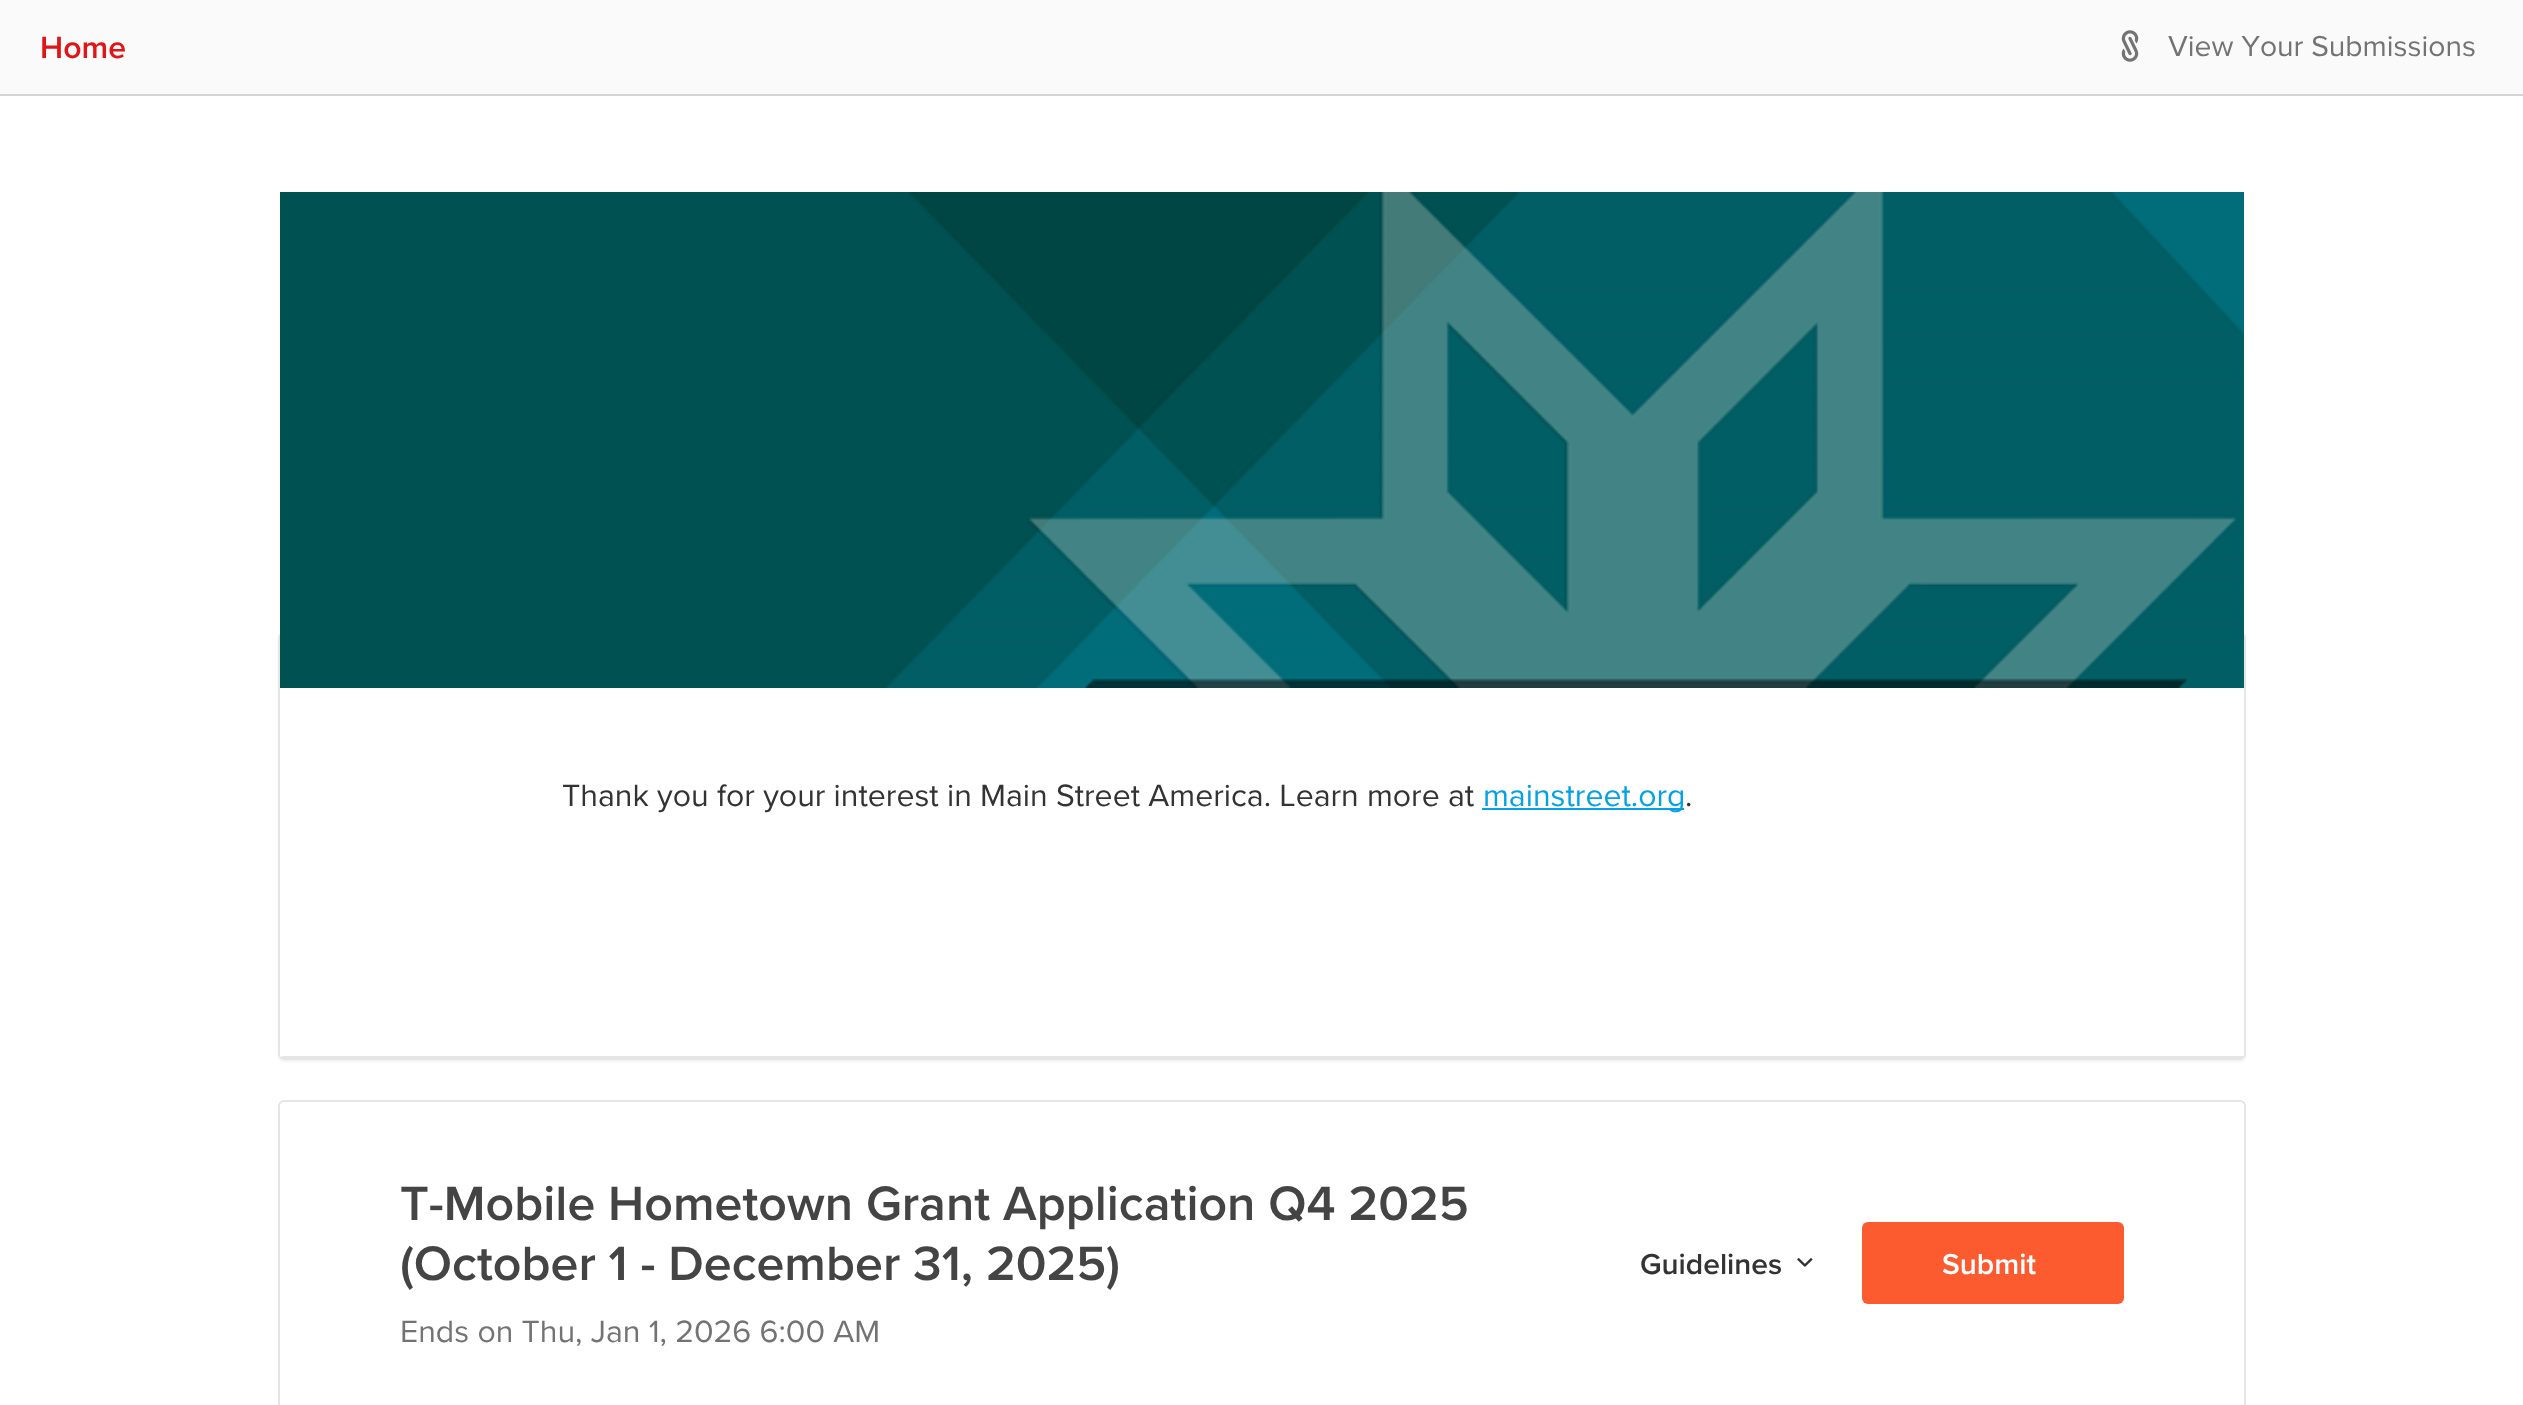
<svg xmlns="http://www.w3.org/2000/svg" width="2523" height="1405" viewBox="0 0 2523 1405">
  <style>
    .t1 { font: 32px 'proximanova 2'; fill: #e01518; }
    .t2 { font: 30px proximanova; fill: #737373; }
    .t3 { font: 32px proximanova; fill: #333; }
    .t4 { font: 32px proximanova; fill: #04a1e5; }
    .t5 { font: 50px 'proximanova 2'; fill: #444; }
    .t6 { font: 32px proximanova; fill: #737373; }
    .t7 { font: 30px 'proximanova 2'; fill: #333; }
    .t8 { font: 30px 'proximanova 2'; fill: #fff; }
  </style>
  <defs>
    <clipPath id="clip1"><path d="M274 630H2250V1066H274ZM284 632H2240C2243.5 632 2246 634.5 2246 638V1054C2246 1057.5 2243.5 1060 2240 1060H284C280.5 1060 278 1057.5 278 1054V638C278 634.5 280.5 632 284 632Z" clip-rule="evenodd"/></clipPath>
  </defs>
  <rect width="100%" height="100%" fill="#fff"/>
  <rect x="0" y="0" width="2523" height="94" fill="#fafafa"/>
  <rect x="0" y="94" width="2523" height="2" fill="#d5d5d5"/>
  <text x="40" y="58" class="t1">Home</text>
  <image x="2121" y="30" width="18" height="32" href="images/1.png"/>
  <text x="2168" y="56" class="t2">View Your Submissions</text>
  <g clip-path="url(#clip1)">
    <rect x="278" y="634" width="1968" height="428" rx="6" fill="#0000000d" filter="blur(1px)"/>
  </g>
  <rect x="279" y="633" width="1966" height="426" rx="5" fill="none" stroke="#e5e5e5" stroke-width="2"/>
  <image x="280" y="192" width="1964" height="496" href="images/2.png"/>
  <rect x="282" y="1056" width="1962" height="2" fill="#e5e5e5"/>
  <text x="562" y="806" class="t3">Thank you for your interest in Main Street America. Learn more at</text>
  <rect x="1482" y="808" width="202" height="2" fill="#04a1e5"/>
  <text x="1483" y="806" class="t4">mainstreet.org</text>
  <text x="1685" y="806" class="t3">.</text>
  <rect x="279" y="1101" width="1966" height="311" rx="5" fill="none" stroke="#e5e5e5" stroke-width="2"/>
  <text x="400" y="1220" class="t5">T-Mobile Hometown Grant Application Q4 2025</text>
  <text x="400" y="1280" class="t5">(October 1 - December 31, 2025)</text>
  <text x="400" y="1342" class="t6">Ends on Thu, Jan 1, 2026 6:00 AM</text>
  <text x="1640" y="1274" class="t7">Guidelines</text>
  <image x="1797" y="1257" width="16" height="10" href="images/3.png"/>
  <rect x="1862" y="1222" width="262" height="82" rx="6" fill="#fc5b30"/>
  <text x="1942" y="1274" class="t8">Submit</text>
</svg>
